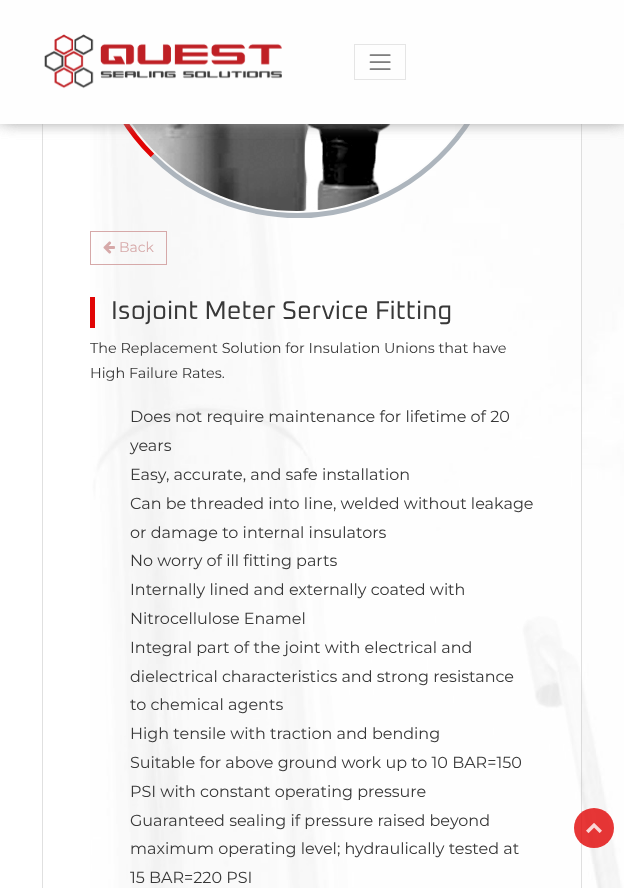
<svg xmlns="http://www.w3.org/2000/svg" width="624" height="888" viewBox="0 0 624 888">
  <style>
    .t1 { font: 14px Montserrat; fill: #d6a9a9; }
    .t2 { font: 25.75px Oxanium; fill: #383838; }
    .t3 { font: 14.4px Montserrat; fill: #383838; }
    .t4 { font: 16px Montserrat; fill: #383838; }
  </style>
  <rect width="100%" height="100%" fill="#fff"/>
  <image x="90" y="124" width="534" height="764" href="images/3.png"/>
  <rect x="42.5" y="-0.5" width="539" height="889" fill="none" stroke="#0000001f"/>
  <path d="M441.5-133.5C465.5-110 483-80.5 492.5-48.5C537.5 99 408 241.5 257 211.5C217.5 203.5 181 184 152.5 155.5" fill="none" stroke="#adb5bd" stroke-width="5"/>
  <path d="M152.5 155.5C128.5 132 111 102.5 101.5 70.5C56.5-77 186-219.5 337-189.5C376.5-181.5 413-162 441.5-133.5" fill="none" stroke="#e10505" stroke-width="5"/>
  <image x="132" y="124" width="323" height="87" href="images/4.png"/>
  <rect x="1" y="-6" width="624" height="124" fill="#999" filter="blur(9px)"/>
  <rect x="1" y="-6" width="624" height="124" fill="#999" filter="blur(9px)"/>
  <rect x="0" y="0" width="624" height="124" fill="#fefefe"/>
  <image x="44" y="34" width="238" height="55" href="images/1.png"/>
  <rect x="354.5" y="44.5" width="51" height="35" fill="none" stroke="#e5e5e5"/>
  <image x="369" y="54" width="22" height="16" href="images/2.png"/>
  <rect x="90.5" y="231.5" width="76" height="33" fill="none" stroke="#d6a9a9"/>
  <image x="103" y="241" width="12" height="13" href="images/5.png"/>
  <text x="119" y="252" class="t1">Back</text>
  <rect x="90" y="297" width="5" height="31" fill="#e10505"/>
  <text x="111" y="319" class="t2">Isojoint Meter Service Fitting</text>
  <text x="90" y="353" class="t3">The Replacement Solution for Insulation Unions that have</text>
  <text x="90" y="378" class="t3">High Failure Rates.</text>
  <text x="130" y="422" class="t4">Does not require maintenance for lifetime of 20</text>
  <text x="130" y="451" class="t4">years</text>
  <text x="130" y="480" class="t4">Easy, accurate, and safe installation</text>
  <text x="130" y="509" class="t4">Can be threaded into line, welded without leakage</text>
  <text x="130" y="538" class="t4">or damage to internal insulators</text>
  <text x="130" y="566" class="t4">No worry of ill fitting parts</text>
  <text x="130" y="595" class="t4">Internally lined and externally coated with</text>
  <text x="130" y="624" class="t4">Nitrocellulose Enamel</text>
  <text x="130" y="653" class="t4">Integral part of the joint with electrical and</text>
  <text x="130" y="682" class="t4">dielectrical characteristics and strong resistance</text>
  <text x="130" y="710" class="t4">to chemical agents</text>
  <text x="130" y="739" class="t4">High tensile with traction and bending</text>
  <text x="130" y="768" class="t4">Suitable for above ground work up to 10 BAR=150</text>
  <text x="130" y="797" class="t4">PSI with constant operating pressure</text>
  <text x="130" y="826" class="t4">Guaranteed sealing if pressure raised beyond</text>
  <text x="130" y="854" class="t4">maximum operating level; hydraulically tested at</text>
  <text x="130" y="883" class="t4">15 BAR=220 PSI</text>
  <circle cx="594" cy="828" r="20" fill="#e10505cc"/>
  <image x="586" y="823" width="16" height="11" href="images/6.png"/>
</svg>
